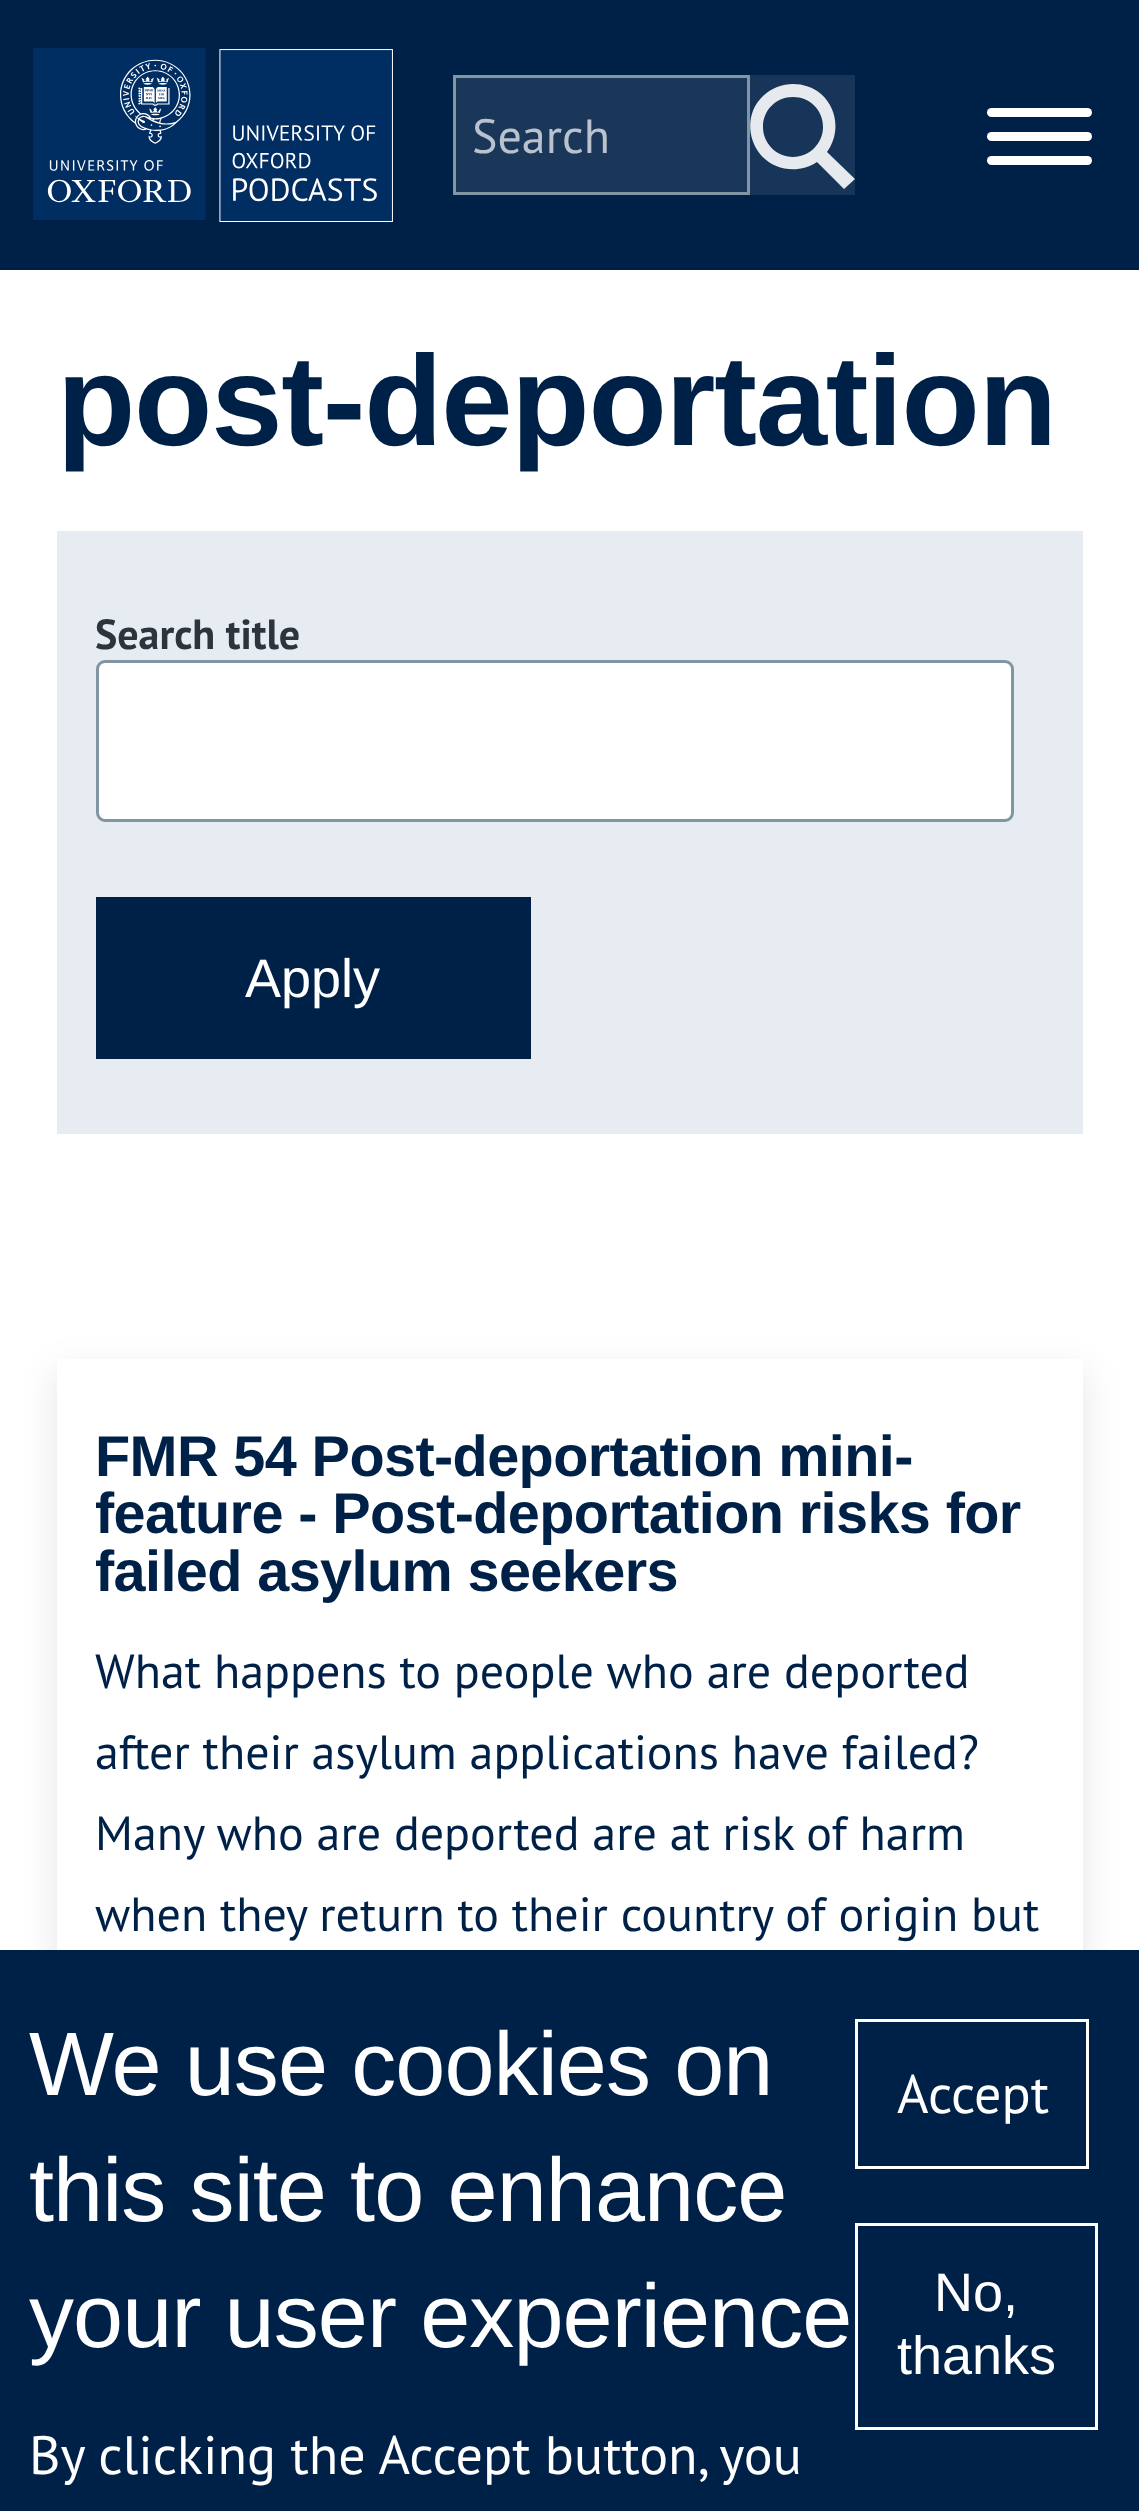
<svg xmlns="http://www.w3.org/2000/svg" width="1139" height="2511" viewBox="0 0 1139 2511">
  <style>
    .t1 { font: 48px PT Sans; fill: #bac3cd; }
    .t2 { font: bold 128.25px Liberation Sans; letter-spacing: -1.25px; fill: #002147; }
    .t3 { font: bold 42px PT Sans; fill: #2b353b; }
    .t4 { font: 54px Liberation Sans; fill: #fff; }
    .t5 { font: bold 57.6px Liberation Sans; letter-spacing: -0.6px; fill: #002147; }
    .t6 { font: 48px PT Sans; fill: #002147; }
    .t7 { font: 90px Liberation Sans; letter-spacing: -0.9px; fill: #fff; }
    .t8 { font: 54px PT Sans; fill: #fff; }
  </style>
  <defs>
    <clipPath id="clip1"><path d="M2 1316H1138V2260H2ZM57 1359H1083V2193H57Z" clip-rule="evenodd"/></clipPath>
  </defs>
  <rect width="100%" height="100%" fill="#fff"/>
  <rect x="0" y="0" width="1139" height="270" fill="#002147"/>
  <image x="33" y="48" width="360" height="174" href="images/1.png"/>
  <rect x="454.5" y="76.5" width="294" height="117" fill="#1a3759" stroke="#8196a2" stroke-width="3"/>
  <text x="472" y="153" class="t1">Search</text>
  <rect x="750" y="75" width="105" height="120" fill="#173558"/>
  <path d="M855 179L827 152C840 134 838 109 821 94C804 80 779 81 763 96C747 111 746 136 760 154C774 171 799 174 817 162L844 189ZM763 127C763 110 776 97 793 97C810 97 823 110 823 127C823 143 810 157 793 157C776 157 763 143 763 127Z" fill="#e6e9ed"/>
  <rect x="987" y="132" width="105" height="9" rx="4.5" fill="#fff"/>
  <rect x="987" y="108" width="105" height="9" rx="4.5" fill="#fff"/>
  <rect x="987" y="156" width="105" height="9" rx="4.5" fill="#fff"/>
  <text x="57" y="445" class="t2">post-deportation</text>
  <rect x="57" y="531" width="1026" height="603" fill="#e7ecf3"/>
  <text x="95" y="649" class="t3">Search title</text>
  <rect x="97.5" y="661.5" width="915" height="159" rx="7.5" fill="#fff" stroke="#8196a2" stroke-width="3"/>
  <rect x="96" y="897" width="435" height="162" fill="#002147"/>
  <text x="245" y="997" class="t4">Apply</text>
  <g clip-path="url(#clip1)">
    <rect x="57" y="1371" width="1026" height="834" fill="#0000001a" filter="blur(18px)"/>
  </g>
  <text x="95" y="1476" class="t5">FMR 54 Post-deportation mini-</text>
  <text x="95" y="1533" class="t5">feature - Post-deportation risks for</text>
  <text x="95" y="1591" class="t5">failed asylum seekers</text>
  <text x="95" y="1688" class="t6">What happens to people who are deported</text>
  <text x="95" y="1769" class="t6">after their asylum applications have failed?</text>
  <text x="95" y="1850" class="t6">Many who are deported are at risk of harm</text>
  <text x="95" y="1931" class="t6">when they return to their country of origin but</text>
  <rect x="0" y="1950" width="1139" height="561" fill="#002147"/>
  <text x="29" y="2095" class="t7">We use cookies on</text>
  <text x="29" y="2221" class="t7">this site to enhance</text>
  <text x="29" y="2347" class="t7">your user experience</text>
  <text x="29" y="2474" class="t8">By clicking the Accept button, you</text>
  <rect x="856.5" y="2020.5" width="231" height="147" fill="none" stroke="#fff" stroke-width="3"/>
  <text x="897" y="2113" class="t8">Accept</text>
  <rect x="856.5" y="2224.5" width="240" height="204" fill="none" stroke="#fff" stroke-width="3"/>
  <text x="934" y="2311" class="t4">No,</text>
  <text x="897" y="2374" class="t4">thanks</text>
</svg>
